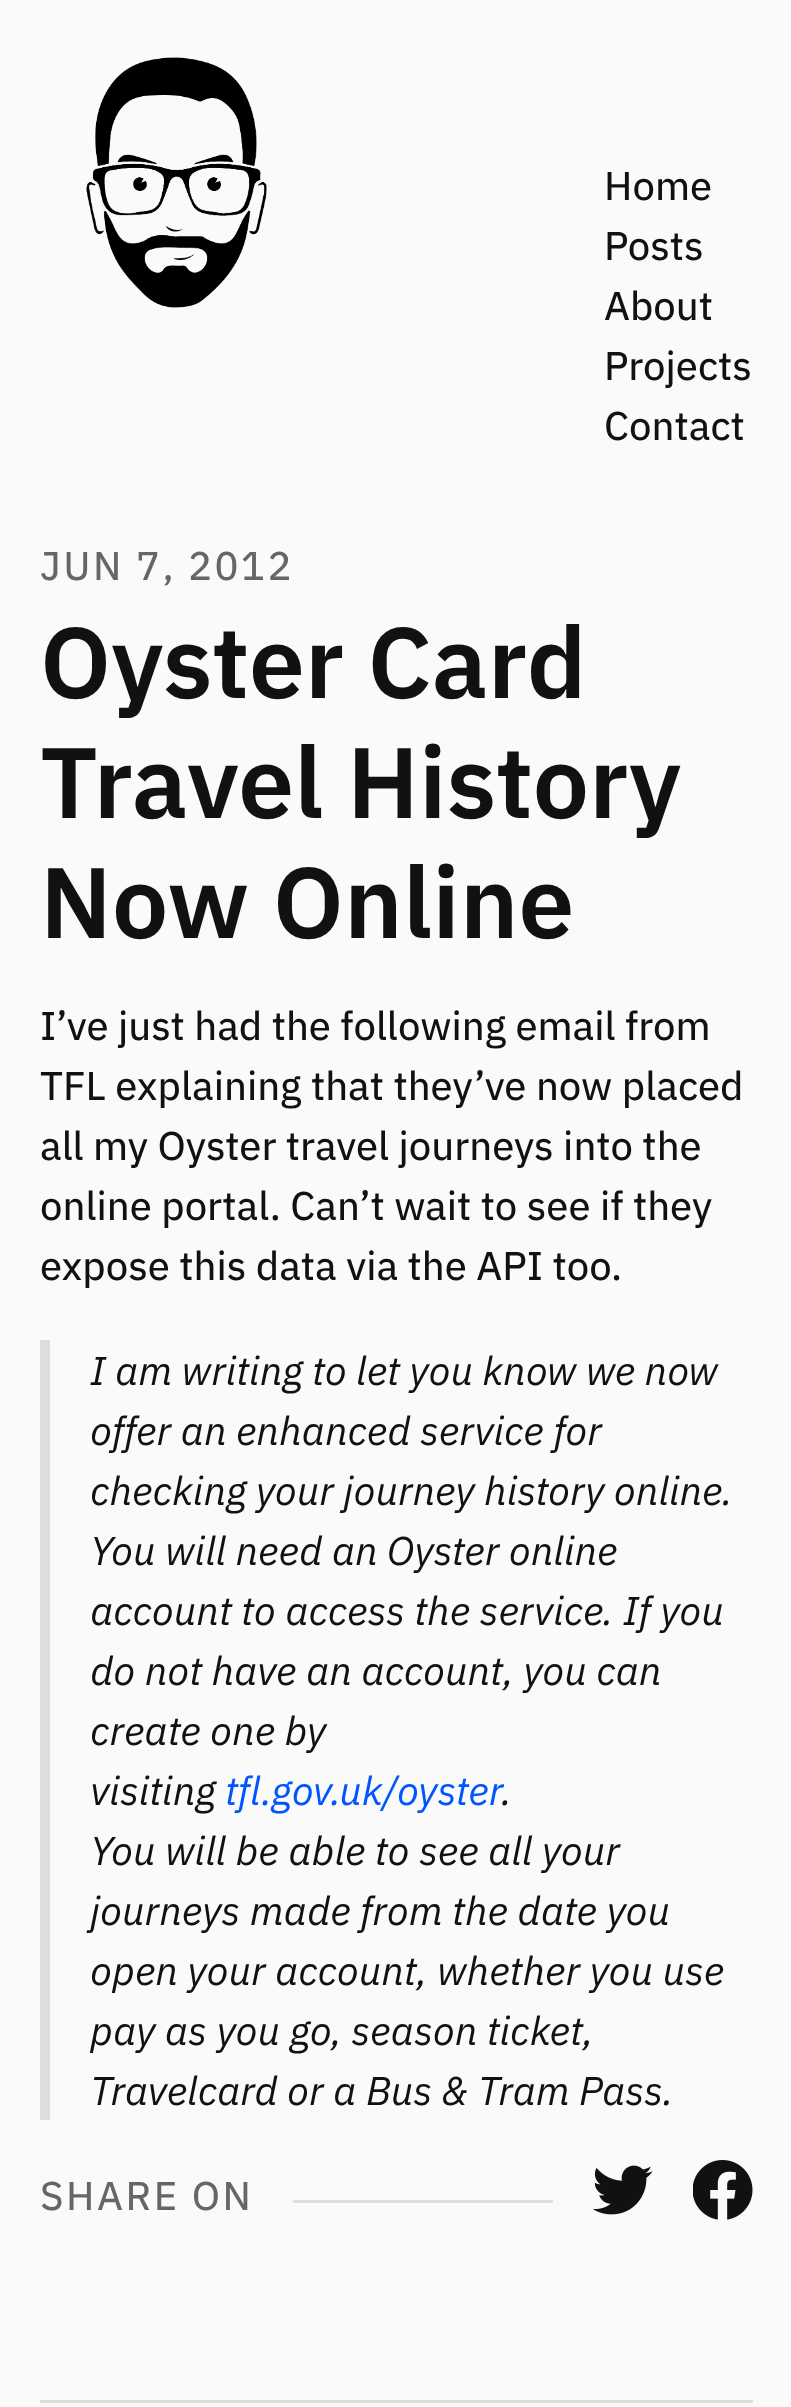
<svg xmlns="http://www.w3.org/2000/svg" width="791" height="2407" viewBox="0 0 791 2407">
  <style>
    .t1 { font: 40px IBM Plex Sans; fill: #111; }
    .t2 { font: 40px IBM Plex Sans; letter-spacing: 2.5px; fill: #666; }
    .t3 { font: 600 100px IBM Plex Sans; fill: #111; }
    .t4 { font: italic 40px IBM Plex Sans; fill: #111; }
    .t5 { font: italic 40px IBM Plex Sans; fill: #05f; }
  </style>
  <rect width="100%" height="100%" fill="#fafafa"/>
  <image x="86" y="57" width="181" height="251" href="images/1.png"/>
  <text x="604" y="200" class="t1">Home</text>
  <text x="604" y="260" class="t1">Posts</text>
  <text x="604" y="320" class="t1">About</text>
  <text x="604" y="380" class="t1">Projects</text>
  <text x="604" y="440" class="t1">Contact</text>
  <text x="40" y="580" class="t2">JUN 7, 2012</text>
  <text x="40" y="698" class="t3">Oyster Card</text>
  <text x="40" y="818" class="t3">Travel History</text>
  <text x="40" y="938" class="t3">Now Online</text>
  <text x="40" y="1040" class="t1">I’ve just had the following email from</text>
  <text x="40" y="1100" class="t1">TFL explaining that they’ve now placed</text>
  <text x="40" y="1160" class="t1">all my Oyster travel journeys into the</text>
  <text x="40" y="1220" class="t1">online portal. Can’t wait to see if they</text>
  <text x="40" y="1280" class="t1">expose this data via the API too.</text>
  <rect x="40" y="1340" width="10" height="780" fill="#ddd"/>
  <text x="90" y="1385" class="t4">I am writing to let you know we now</text>
  <text x="90" y="1445" class="t4">offer an enhanced service for</text>
  <text x="90" y="1505" class="t4">checking your journey history online.</text>
  <text x="90" y="1565" class="t4">You will need an Oyster online</text>
  <text x="90" y="1625" class="t4">account to access the service. If you</text>
  <text x="90" y="1685" class="t4">do not have an account, you can</text>
  <text x="90" y="1745" class="t4">create one by</text>
  <text x="90" y="1805" class="t4">visiting</text>
  <text x="225" y="1805" class="t5">tfl.gov.uk/oyster</text>
  <text x="501" y="1805" class="t4">.</text>
  <text x="90" y="1865" class="t4">You will be able to see all your</text>
  <text x="90" y="1925" class="t4">journeys made from the date you</text>
  <text x="90" y="1985" class="t4">open your account, whether you use</text>
  <text x="90" y="2045" class="t4">pay as you go, season ticket,</text>
  <text x="90" y="2105" class="t4">Travelcard or a Bus &amp; Tram Pass.</text>
  <text x="40" y="2210" class="t2">SHARE ON</text>
  <rect x="293" y="2200" width="260" height="3" fill="#ddd"/>
  <image x="593" y="2165" width="60" height="50" href="images/2.png"/>
  <image x="693" y="2160" width="60" height="60" href="images/3.png"/>
  <rect x="40" y="2400" width="713" height="3" fill="#ddd"/>
</svg>
